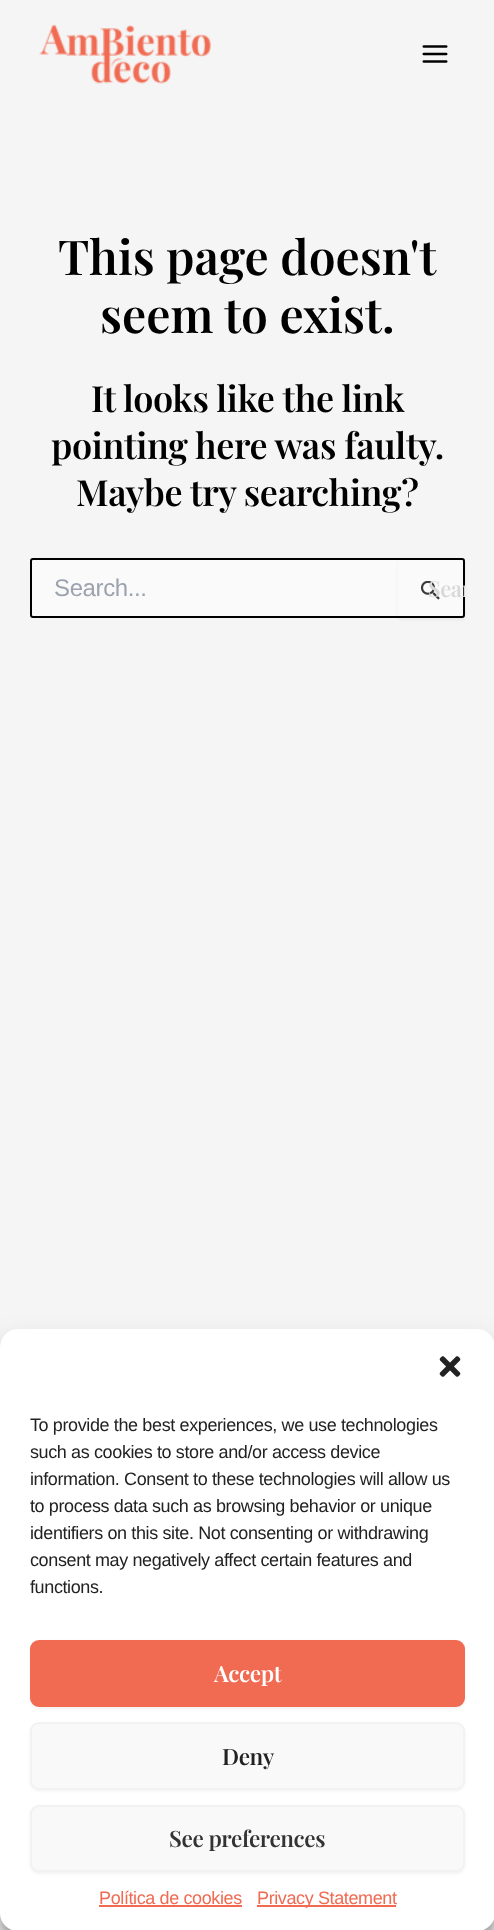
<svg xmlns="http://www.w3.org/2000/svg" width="494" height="1930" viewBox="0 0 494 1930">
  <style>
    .t1 { font: 600 48px Playfair Display; fill: #000; }
    .t2 { font: 600 36px Playfair Display; letter-spacing: -0.38px; fill: #000; }
    .t3 { font: 24px Liberation Sans; letter-spacing: -0.38px; fill: #9ca3af; }
    .t4 { font: 600 22px Playfair Display; letter-spacing: -0.38px; fill: #d8d8d8; }
    .t5 { font: 18px Liberation Sans; letter-spacing: -0.38px; fill: #222; }
    .t6 { font: 600 22.5px Playfair Display; letter-spacing: -0.38px; fill: #fff; }
    .t7 { font: 600 22.5px Playfair Display; letter-spacing: -0.38px; fill: #222; }
    .t8 { font: 600 22.5px Playfair Display; letter-spacing: -0.38px; fill: #333; }
    .t9 { font: 18px Liberation Sans; letter-spacing: -0.38px; fill: #f16a52; }
  </style>
  <defs>
    <clipPath id="clip1"><path d="M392 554H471V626H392ZM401 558H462C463.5 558 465 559.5 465 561V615C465 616.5 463.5 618 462 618H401C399.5 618 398 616.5 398 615V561C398 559.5 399.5 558 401 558Z" clip-rule="evenodd"/></clipPath>
    <clipPath id="clip2"><rect x="398" y="558" width="67" height="60" rx="3"/></clipPath>
  </defs>
  <rect width="100%" height="100%" fill="#f5f5f5"/>
  <image x="39" y="24" width="172" height="60" href="images/1.png"/>
  <image x="422" y="45" width="26" height="18" href="images/2.png"/>
  <text x="58" y="275" class="t1">This page doesn't</text>
  <text x="100" y="333" class="t1">seem to exist.</text>
  <text x="91" y="412" class="t2">It looks like the link</text>
  <text x="51" y="459" class="t2">pointing here was faulty.</text>
  <text x="76" y="506" class="t2">Maybe try searching?</text>
  <rect x="31" y="559" width="433" height="58" rx="2" fill="#fafafa" stroke="#000" stroke-width="2"/>
  <text x="54" y="596" class="t3">Search...</text>
  <image x="420" y="581" width="20" height="19" href="images/3.png"/>
  <g clip-path="url(#clip1)">
    <rect x="398" y="560" width="67" height="60" rx="3" fill="#0000000d" filter="blur(1.5px)"/>
  </g>
  <g clip-path="url(#clip2)">
    <text x="428" y="597" class="t4">Sear</text>
  </g>
  <rect x="0" y="1338" width="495" height="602" rx="18" fill="#0000003b" filter="blur(4.5px)"/>
  <rect x="0" y="1344" width="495" height="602" rx="18" fill="#00000030" filter="blur(15px)"/>
  <rect x="0" y="1329" width="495" height="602" rx="18" fill="#fff"/>
  <image x="439" y="1356" width="22" height="21" href="images/4.png"/>
  <text x="30" y="1431" class="t5">To provide the best experiences, we use technologies</text>
  <text x="30" y="1458" class="t5">such as cookies to store and/or access device</text>
  <text x="30" y="1485" class="t5">information. Consent to these technologies will allow us</text>
  <text x="30" y="1512" class="t5">to process data such as browsing behavior or unique</text>
  <text x="30" y="1539" class="t5">identifiers on this site. Not consenting or withdrawing</text>
  <text x="30" y="1566" class="t5">consent may negatively affect certain features and</text>
  <text x="30" y="1593" class="t5">functions.</text>
  <rect x="30" y="1641" width="435" height="68" rx="9" fill="#0000000d" filter="blur(1.5px)"/>
  <rect x="31" y="1641" width="433" height="65" rx="8" fill="#f16a52" stroke="#f16a52" stroke-width="2"/>
  <text x="214" y="1682" class="t6">Accept</text>
  <rect x="30" y="1724" width="435" height="67" rx="9" fill="#0000000d" filter="blur(1.5px)"/>
  <rect x="31" y="1723" width="433" height="66" rx="8" fill="#f9f9f9" stroke="#f2f2f2" stroke-width="2"/>
  <text x="222" y="1765" class="t7">Deny</text>
  <rect x="30" y="1806" width="435" height="68" rx="9" fill="#0000000d" filter="blur(1.5px)"/>
  <rect x="31" y="1806" width="433" height="65" rx="8" fill="#f9f9f9" stroke="#f2f2f2" stroke-width="2"/>
  <text x="169" y="1847" class="t8">See preferences</text>
  <text x="99" y="1904" class="t9">Política de cookies</text>
  <rect x="99" y="1905" width="143" height="2" fill="#f16a52"/>
  <rect x="257" y="1905" width="139" height="2" fill="#f16a52"/>
  <text x="257" y="1904" class="t9">Privacy Statement</text>
</svg>
